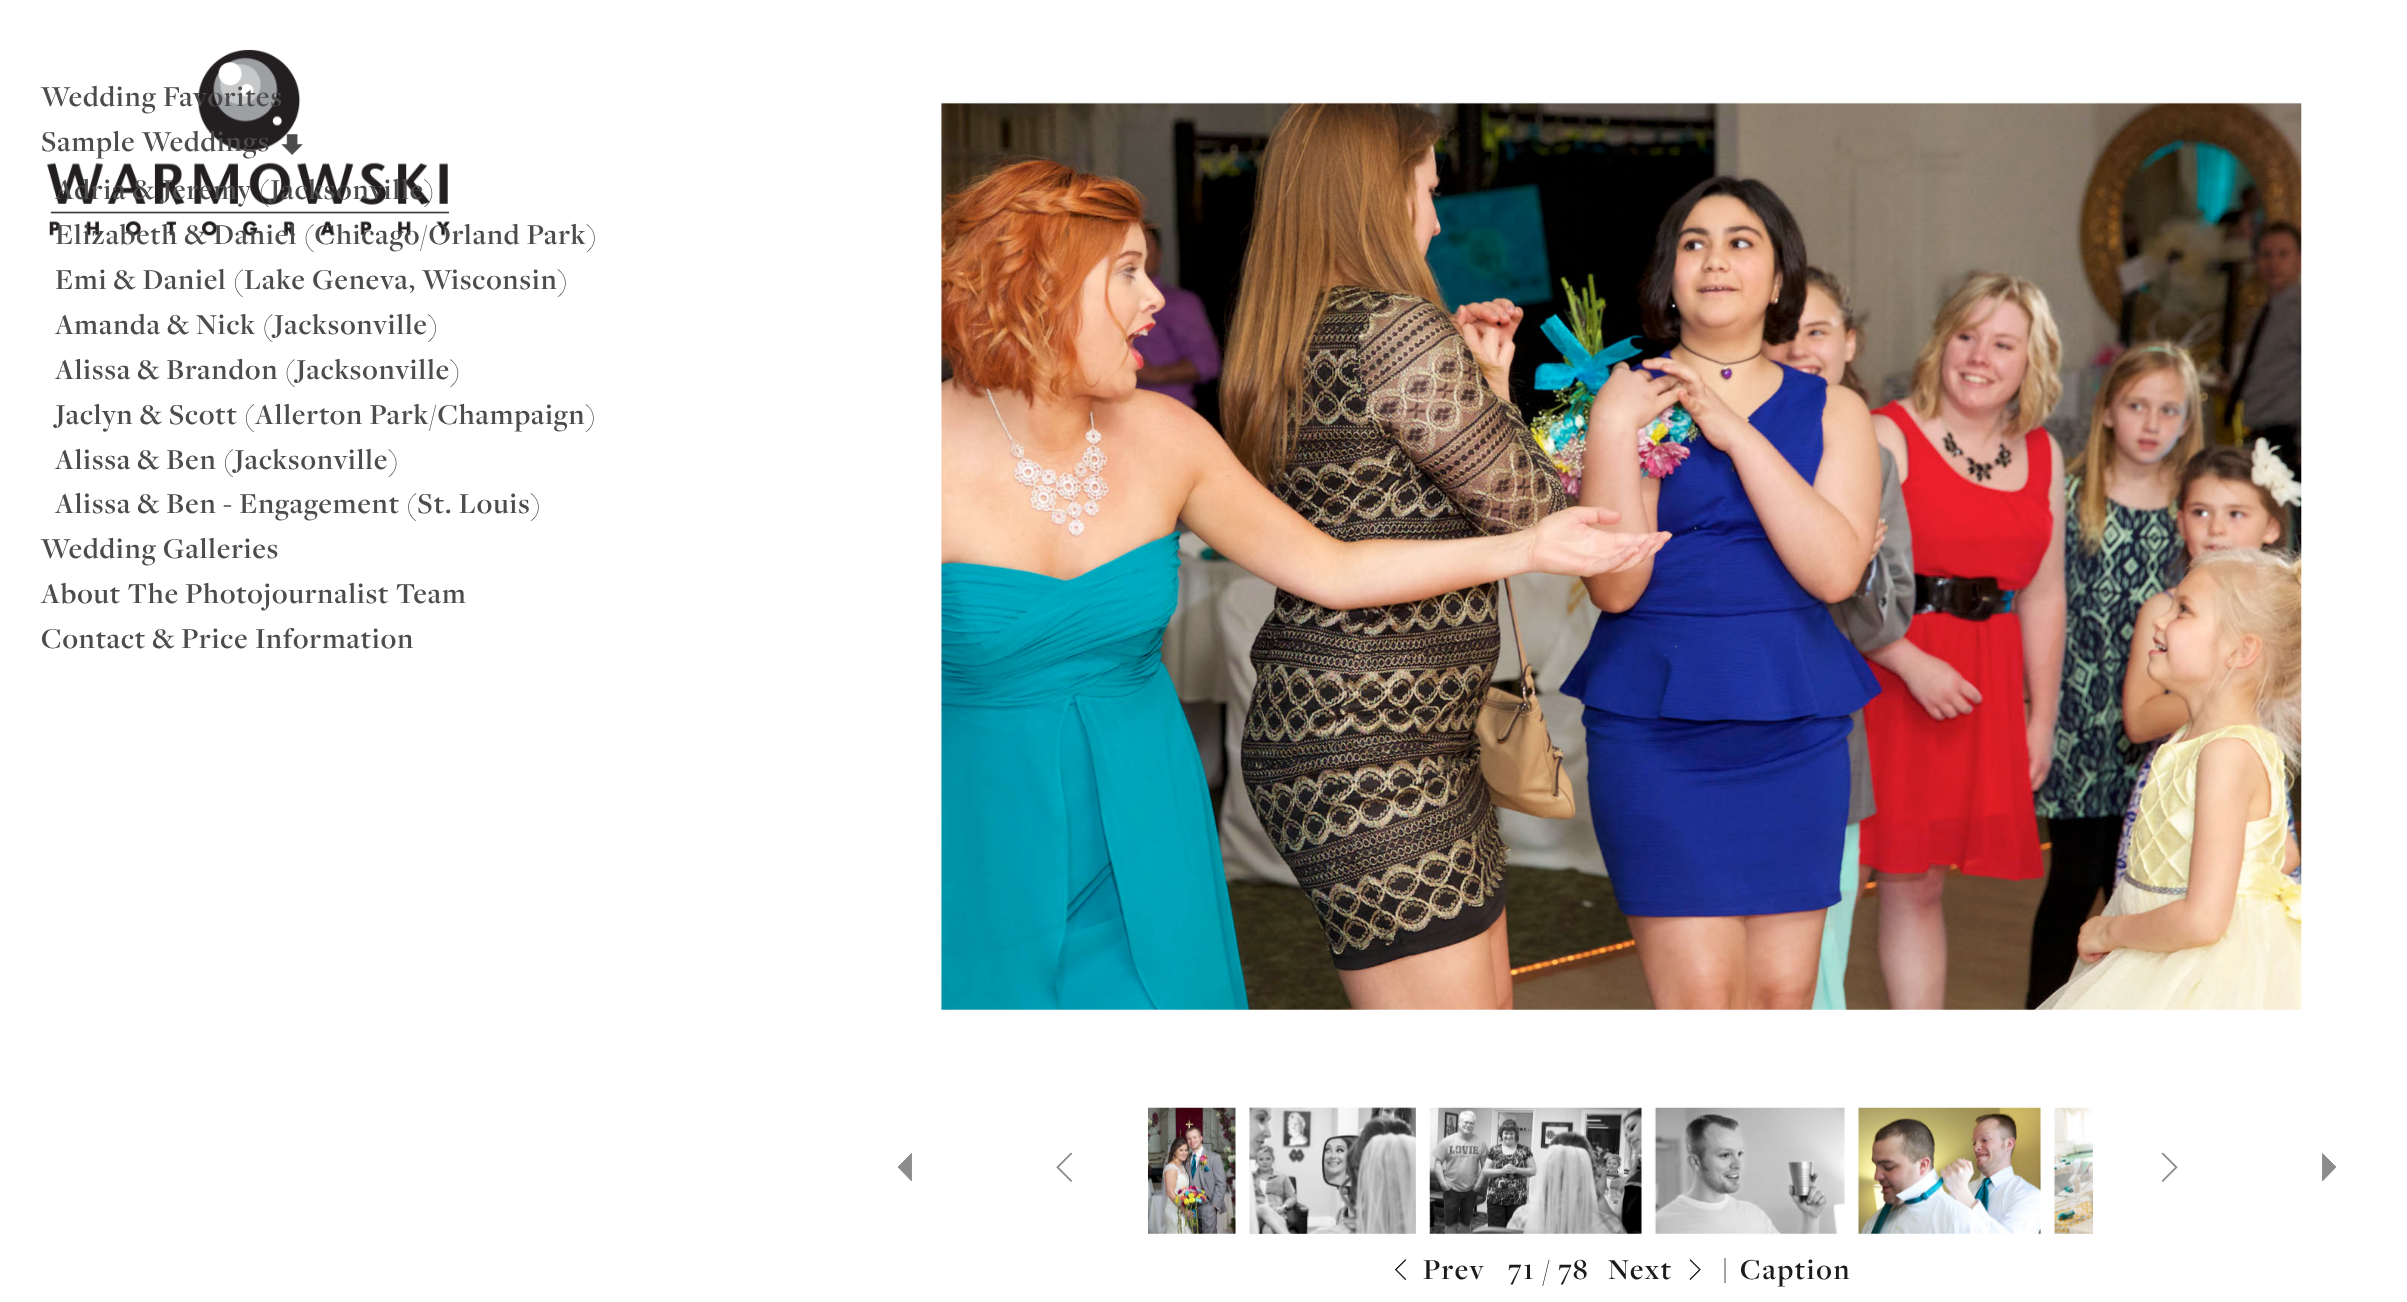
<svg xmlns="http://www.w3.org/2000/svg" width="2407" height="1302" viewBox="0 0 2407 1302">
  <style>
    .t1 { font: 600 29.9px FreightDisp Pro; letter-spacing: 1px; fill: #4c4c4c; }
    .t2 { font: 600 30px FreightDisp Pro; letter-spacing: 1.75px; fill: #1b1b1b; }
    .t3 { font: 600 30px FreightDisp Pro; letter-spacing: 1.5px; fill: #1b1b1b; }
  </style>
  <rect width="100%" height="100%" fill="#fff"/>
  <image x="47" y="49" width="403" height="187" href="images/1.png"/>
  <text x="41" y="106" class="t1">Wedding Favorites</text>
  <text x="41" y="151" class="t1">Sample Weddings</text>
  <image x="281" y="134" width="22" height="21" href="images/2.png"/>
  <text x="55" y="199" class="t1">Adria &amp; Jeremy (Jacksonville)</text>
  <text x="55" y="244" class="t1">Elizabeth &amp; Daniel (Chicago/Orland Park)</text>
  <text x="55" y="289" class="t1">Emi &amp; Daniel (Lake Geneva, Wisconsin)</text>
  <text x="55" y="334" class="t1">Amanda &amp; Nick (Jacksonville)</text>
  <text x="55" y="379" class="t1">Alissa &amp; Brandon (Jacksonville)</text>
  <text x="55" y="424" class="t1">Jaclyn &amp; Scott (Allerton Park/Champaign)</text>
  <text x="55" y="469" class="t1">Alissa &amp; Ben (Jacksonville)</text>
  <text x="55" y="513" class="t1">Alissa &amp; Ben - Engagement (St. Louis)</text>
  <text x="41" y="558" class="t1">Wedding Galleries</text>
  <text x="41" y="603" class="t1">About The Photojournalist Team</text>
  <text x="41" y="648" class="t1">Contact &amp; Price Information</text>
  <image x="941" y="102" width="1361" height="908" href="images/3.png"/>
  <path d="M911.5 1153.5L898 1167L911.5 1181Z" fill="#8c8c8c" stroke="#8c8c8c" stroke-width="0.9"/>
  <image x="1056" y="1152" width="17" height="30" href="images/4.png"/>
  <image x="1148" y="1107" width="88" height="127" href="images/5.png"/>
  <image x="1249" y="1107" width="167" height="127" href="images/6.png"/>
  <image x="1429" y="1107" width="213" height="127" href="images/7.png"/>
  <image x="1654" y="1107" width="191" height="127" href="images/8.png"/>
  <image x="1858" y="1107" width="183" height="127" href="images/9.png"/>
  <image x="2053" y="1107" width="40" height="127" href="images/10.png"/>
  <image x="2161" y="1152" width="17" height="30" href="images/11.png"/>
  <path d="M2322.5 1153.5L2336 1167L2322.5 1181Z" fill="#8c8c8c" stroke="#8c8c8c" stroke-width="0.9"/>
  <image x="1395" y="1259" width="12" height="21" href="images/12.png"/>
  <text x="1423" y="1279" class="t2">Prev</text>
  <text x="1508" y="1279" class="t3">71 / 78</text>
  <text x="1608" y="1279" class="t2">Next</text>
  <image x="1689" y="1259" width="12" height="21" href="images/13.png"/>
  <rect x="1724" y="1258" width="2" height="25" fill="#a4a4a4"/>
  <text x="1740" y="1279" class="t2">Caption</text>
</svg>
